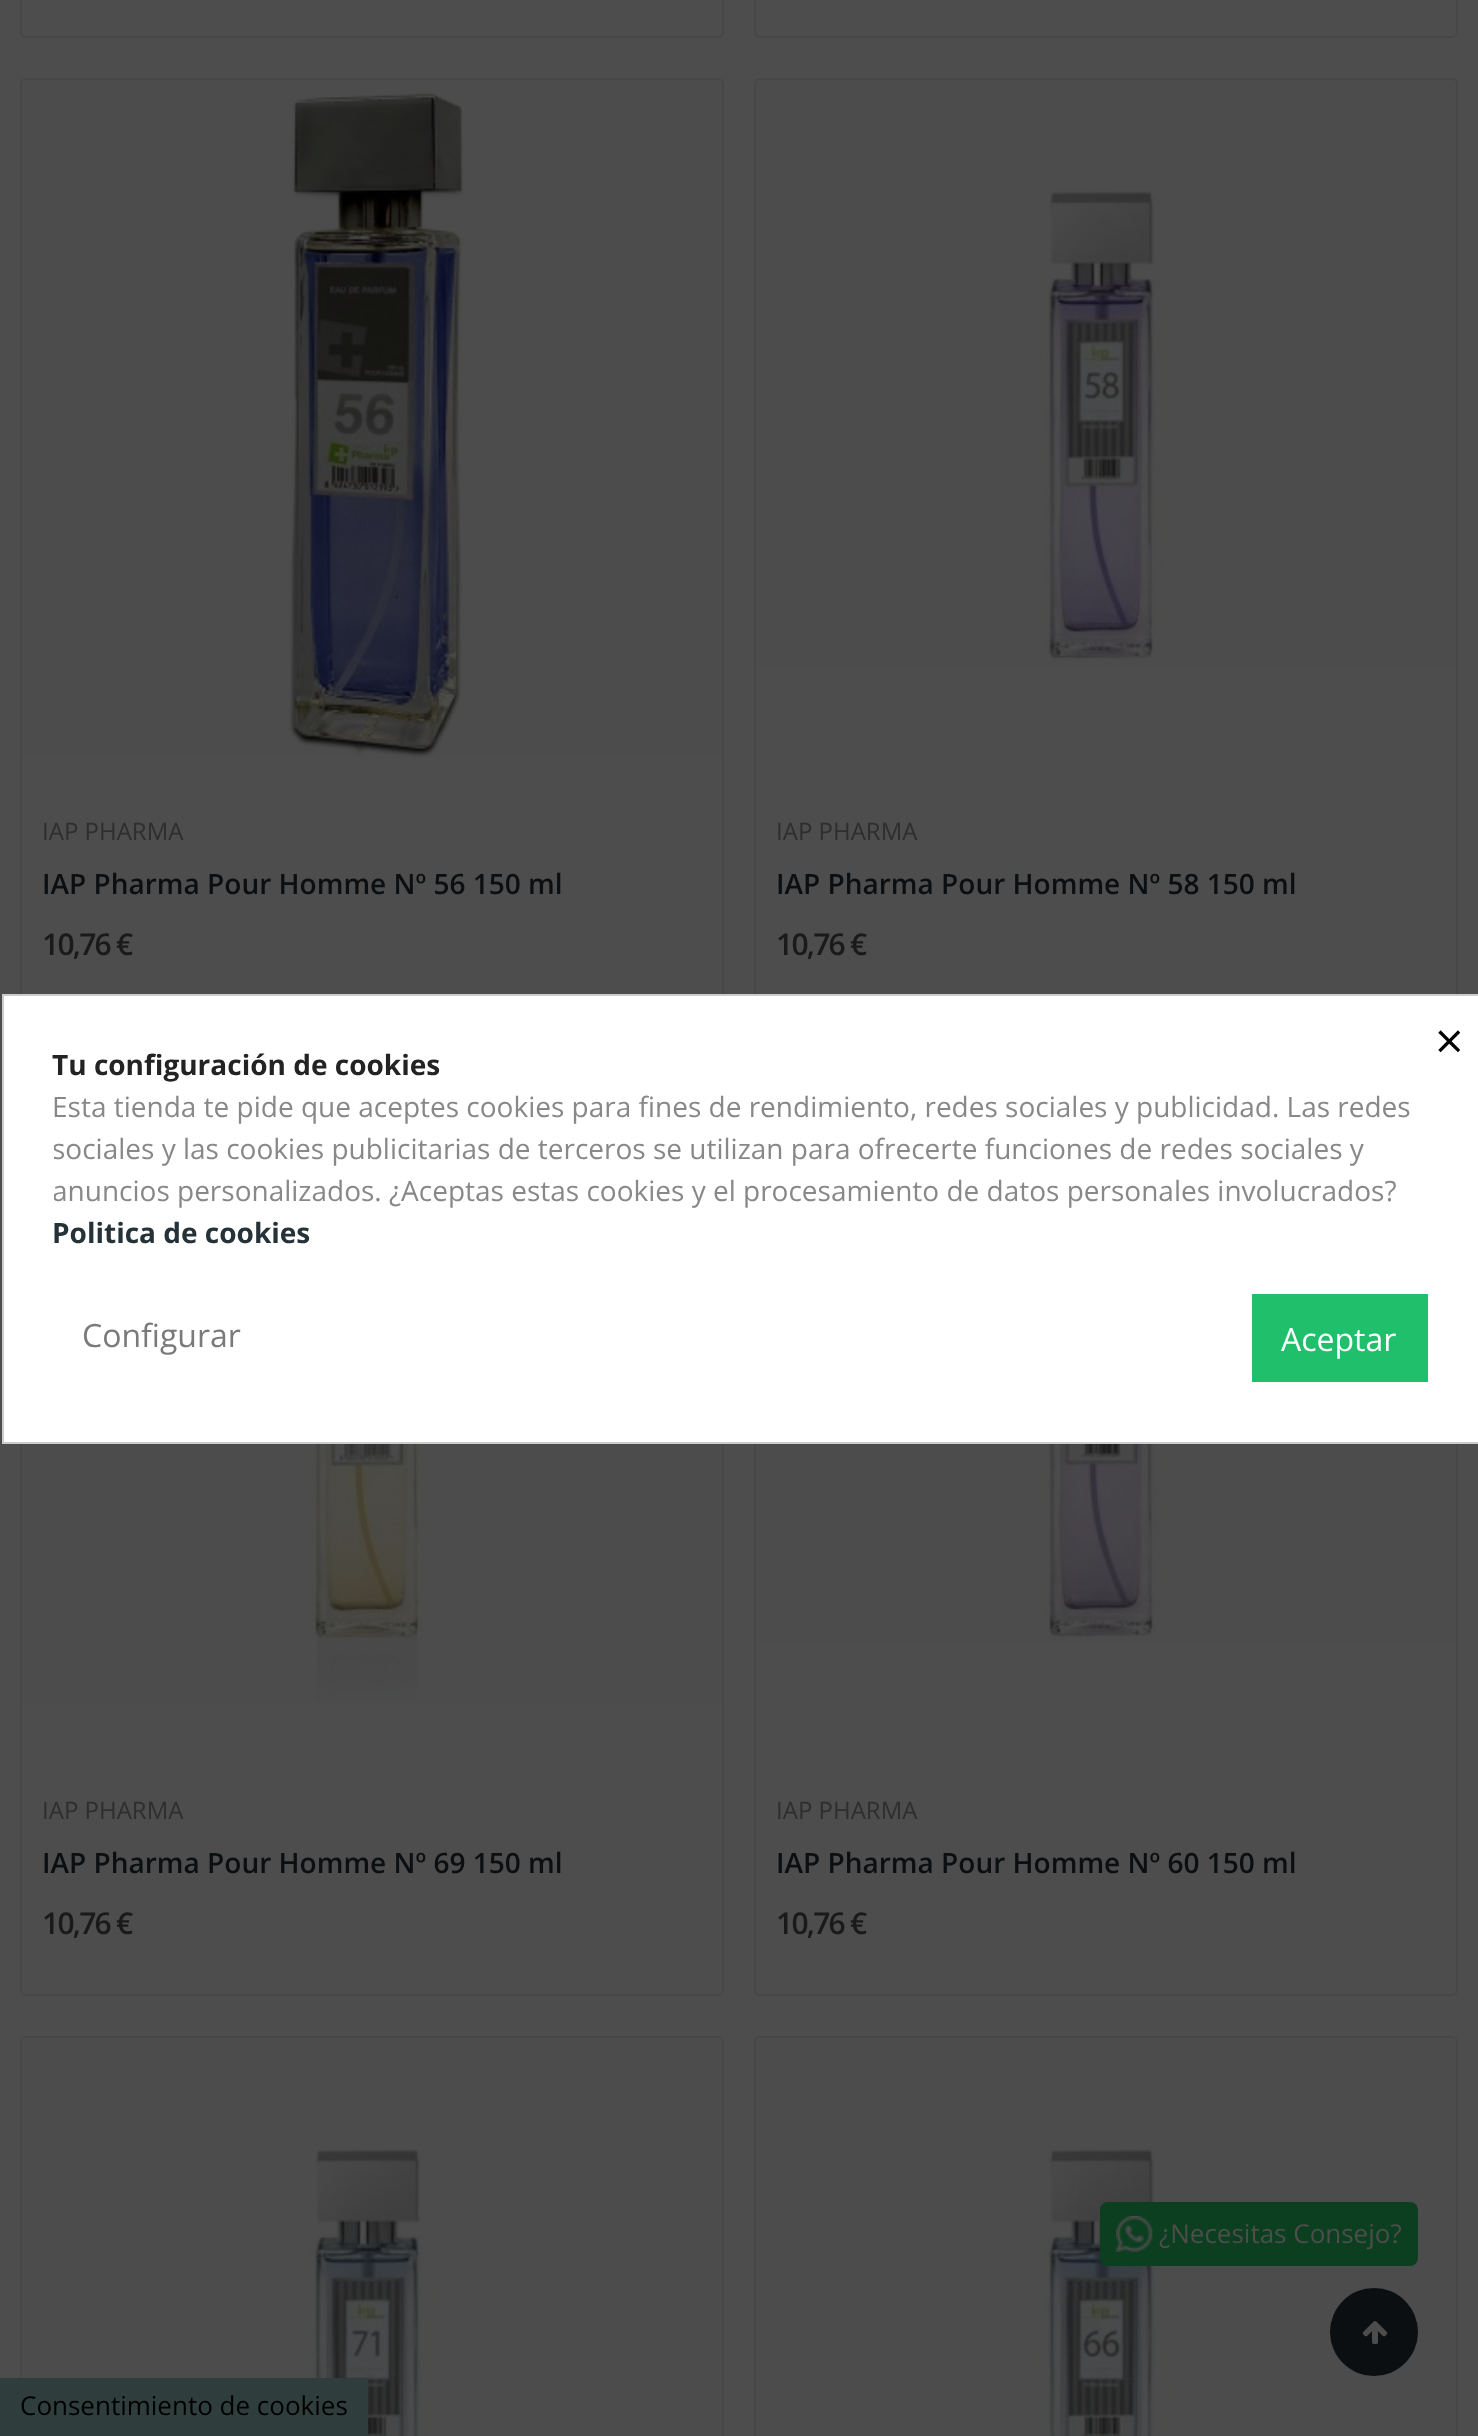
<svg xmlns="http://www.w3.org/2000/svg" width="1478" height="2436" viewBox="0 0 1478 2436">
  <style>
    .t1 { font: 24px Open Sans; fill: #2e2e2e; }
    .t2 { font: 600 28px Open Sans; fill: #0b0f11; }
    .t3 { font: 600 30px Open Sans; letter-spacing: -1.75px; fill: #1a1a1a; }
    .t4 { font: 50px Open Sans; fill: #000; }
    .t5 { font: bold 28px Open Sans; fill: #232323; }
    .t6 { font: 28px Open Sans; fill: #888; }
    .t7 { font: bold 28px Open Sans; fill: #253237; }
    .t8 { font: 32px Open Sans; fill: #7a7a7a; }
    .t9 { font: 32px Open Sans; fill: #fff; }
    .t10 { font: 26px Open Sans; fill: #4d4d4d; }
    .t11 { font: 26px Open Sans; fill: #000; }
  </style>
  <defs>
    <clipPath id="clip1"><rect x="54" y="1086" width="1374" height="168"/></clipPath>
  </defs>
  <rect width="100%" height="100%" fill="#4d4d4d"/>
  <rect x="21" y="-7" width="702" height="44" rx="5" fill="none" stroke="#474747" stroke-width="2"/>
  <rect x="755" y="-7" width="702" height="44" rx="5" fill="none" stroke="#474747" stroke-width="2"/>
  <rect x="21" y="79" width="702" height="936" rx="5" fill="none" stroke="#474747" stroke-width="2"/>
  <image x="22" y="80" width="700" height="678" href="images/1.png"/>
  <text x="42" y="840" class="t1">IAP PHARMA</text>
  <text x="42" y="894" class="t2">IAP Pharma Pour Homme Nº 56 150 ml</text>
  <text x="42" y="955" class="t3">10,76 €</text>
  <rect x="755" y="79" width="702" height="936" rx="5" fill="none" stroke="#474747" stroke-width="2"/>
  <image x="756" y="80" width="700" height="588" href="images/2.png"/>
  <text x="776" y="840" class="t1">IAP PHARMA</text>
  <text x="776" y="894" class="t2">IAP Pharma Pour Homme Nº 58 150 ml</text>
  <text x="776" y="955" class="t3">10,76 €</text>
  <rect x="21" y="1057" width="702" height="938" rx="5" fill="none" stroke="#474747" stroke-width="2"/>
  <image x="22" y="1444" width="700" height="259" href="images/3.png"/>
  <text x="42" y="1819" class="t1">IAP PHARMA</text>
  <text x="42" y="1873" class="t2">IAP Pharma Pour Homme Nº 69 150 ml</text>
  <text x="42" y="1934" class="t3">10,76 €</text>
  <rect x="755" y="1057" width="702" height="938" rx="5" fill="none" stroke="#474747" stroke-width="2"/>
  <image x="756" y="1444" width="700" height="202" href="images/4.png"/>
  <text x="776" y="1819" class="t1">IAP PHARMA</text>
  <text x="776" y="1873" class="t2">IAP Pharma Pour Homme Nº 60 150 ml</text>
  <text x="776" y="1934" class="t3">10,76 €</text>
  <rect x="21" y="2037" width="702" height="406" rx="5" fill="none" stroke="#474747" stroke-width="2"/>
  <image x="22" y="2038" width="700" height="398" href="images/5.png"/>
  <rect x="755" y="2037" width="702" height="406" rx="5" fill="none" stroke="#474747" stroke-width="2"/>
  <image x="756" y="2038" width="700" height="398" href="images/6.png"/>
  <rect x="3" y="995" width="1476" height="448" fill="#fff" stroke="#ccc" stroke-width="2"/>
  <text x="1435" y="1059" class="t4">×</text>
  <text x="52" y="1075" class="t5">Tu configuración de cookies</text>
  <text x="52" y="1117" class="t6">Esta tienda te pide que aceptes cookies para fines de rendimiento, redes sociales y publicidad. Las redes</text>
  <g clip-path="url(#clip1)">
    <text x="52" y="1159" class="t6">sociales y las cookies publicitarias de terceros se utilizan para ofrecerte funciones de redes sociales y</text>
    <text x="52" y="1201" class="t6">anuncios personalizados. ¿Aceptas estas cookies y el procesamiento de datos personales involucrados?</text>
  </g>
  <text x="52" y="1243" class="t7">Politica de cookies</text>
  <text x="82" y="1347" class="t8">Configurar</text>
  <rect x="1252" y="1294" width="176" height="88" fill="#20bf6b"/>
  <text x="1281" y="1351" class="t9">Aceptar</text>
  <rect x="1100" y="2202" width="318" height="64" rx="8" fill="#0b3f1f"/>
  <image x="1116" y="2216" width="37" height="36" href="images/7.png"/>
  <text x="1159" y="2243" class="t10">¿Necesitas Consejo?</text>
  <circle cx="1374" cy="2332" r="44" fill="#0b0f11"/>
  <image x="1362" y="2321" width="26" height="23" href="images/8.png"/>
  <rect x="0" y="2378" width="368" height="58" fill="#2f3e3c"/>
  <text x="20" y="2415" class="t11">Consentimiento de cookies</text>
</svg>
